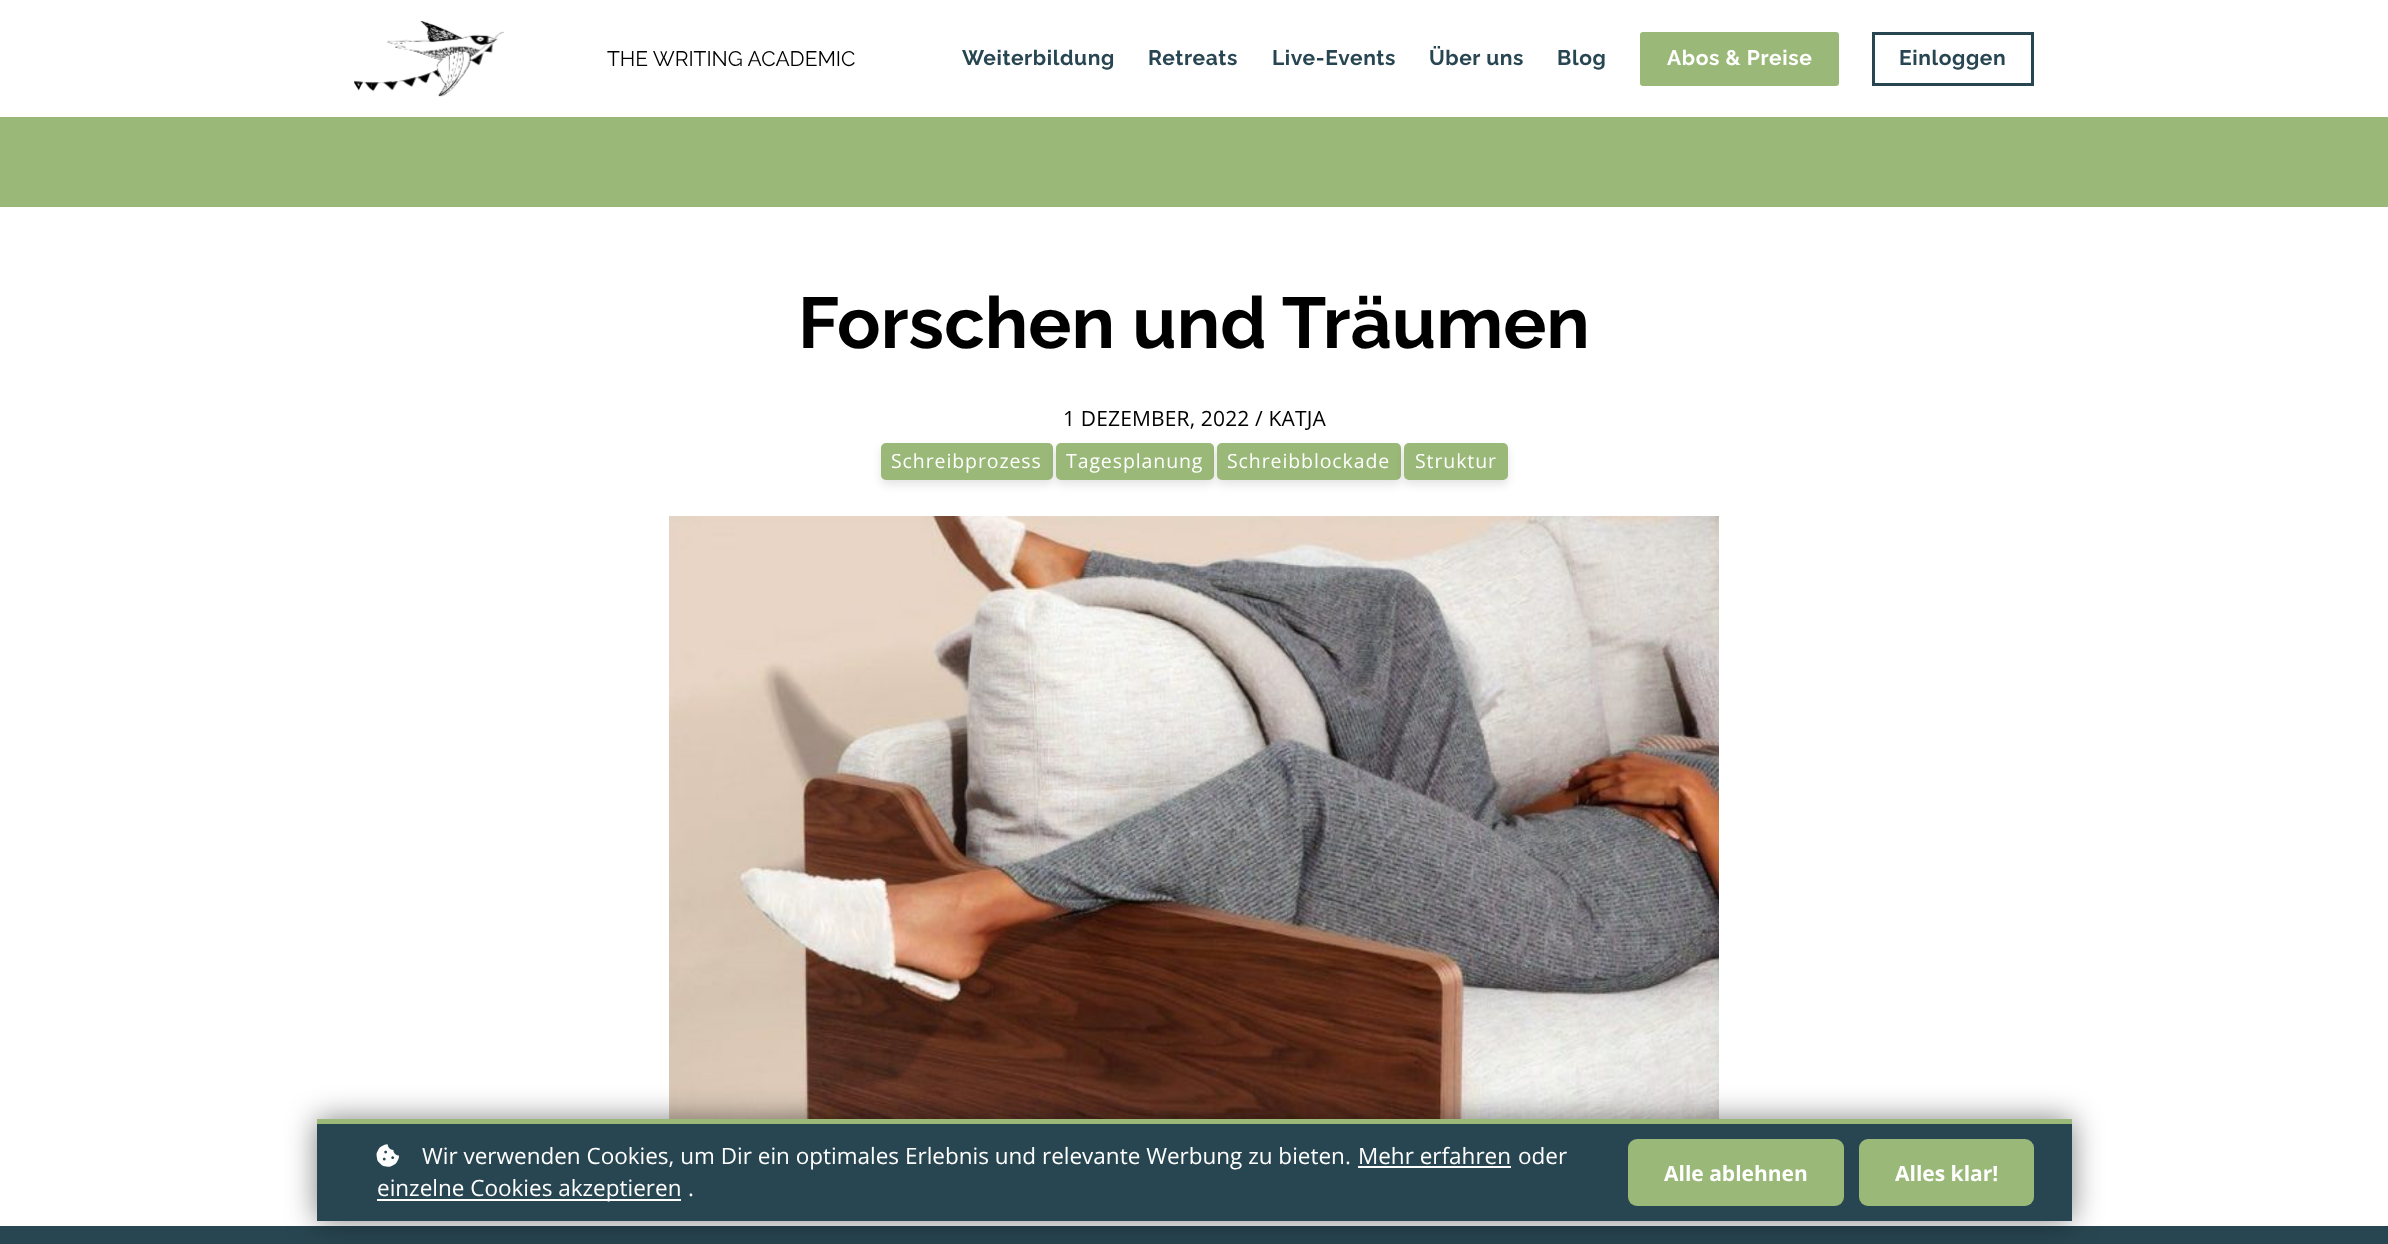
<svg xmlns="http://www.w3.org/2000/svg" width="2388" height="1244" viewBox="0 0 2388 1244">
  <style>
    .t1 { font: 21px Raleway; fill: #000; }
    .t2 { font: bold 21px Raleway; letter-spacing: 0.6px; fill: #284651; }
    .t3 { font: bold 21px Raleway; letter-spacing: 0.6px; fill: #fff; }
    .t4 { font: bold 72px Raleway; fill: #000; }
    .t5 { font: 21px Open Sans; letter-spacing: 0.15px; fill: #000; }
    .t6 { font: 19.5px Open Sans; letter-spacing: 0.9px; fill: #fff; }
    .t7 { font: 22.5px Open Sans; fill: #fff; }
    .t8 { font: bold 21px Open Sans; fill: #fff; }
  </style>
  <rect width="100%" height="100%" fill="#fff"/>
  <image x="354" y="21" width="150" height="76" href="images/1.png"/>
  <text x="607" y="66" class="t1">THE WRITING ACADEMIC</text>
  <text x="962" y="65" class="t2">Weiterbildung</text>
  <text x="1148" y="65" class="t2">Retreats</text>
  <text x="1272" y="65" class="t2">Live-Events</text>
  <text x="1429" y="65" class="t2">Über uns</text>
  <text x="1557" y="65" class="t2">Blog</text>
  <rect x="1640" y="32" width="199" height="54" rx="3" fill="#9ab878"/>
  <text x="1667" y="65" class="t3">Abos &amp; Preise</text>
  <rect x="1873.5" y="33.5" width="159" height="51" fill="none" stroke="#284651" stroke-width="3"/>
  <text x="1899" y="65" class="t2">Einloggen</text>
  <rect x="0" y="117" width="2388" height="90" fill="#9ab878"/>
  <text x="798" y="348" class="t4">Forschen und Träumen</text>
  <text x="1063" y="426" class="t5">1 DEZEMBER, 2022 / KATJA</text>
  <rect x="881" y="447" width="172" height="38" rx="5" fill="#0000001a" filter="blur(4px)"/>
  <rect x="881" y="443" width="172" height="37" rx="5" fill="#9ab878"/>
  <text x="891" y="468" class="t6">Schreibprozess</text>
  <rect x="1056" y="447" width="158" height="38" rx="5" fill="#0000001a" filter="blur(4px)"/>
  <rect x="1056" y="443" width="158" height="37" rx="5" fill="#9ab878"/>
  <text x="1066" y="468" class="t6">Tagesplanung</text>
  <rect x="1217" y="447" width="184" height="38" rx="5" fill="#0000001a" filter="blur(4px)"/>
  <rect x="1217" y="443" width="184" height="37" rx="5" fill="#9ab878"/>
  <text x="1227" y="468" class="t6">Schreibblockade</text>
  <rect x="1404" y="447" width="104" height="38" rx="5" fill="#0000001a" filter="blur(4px)"/>
  <rect x="1404" y="443" width="104" height="37" rx="5" fill="#9ab878"/>
  <text x="1415" y="468" class="t6">Struktur</text>
  <image x="669" y="516" width="1050" height="603" href="images/2.png"/>
  <rect x="0" y="1226" width="2388" height="18" fill="#284651"/>
  <rect x="317" y="1119" width="1755" height="102" fill="#00000080" filter="blur(15px)"/>
  <rect x="317" y="1124" width="1755" height="97" fill="#284651"/>
  <rect x="317" y="1119" width="1755" height="5" fill="#9ab878"/>
  <image x="376" y="1144" width="23" height="23" href="images/3.png"/>
  <text x="422" y="1164" class="t7">Wir verwenden Cookies, um Dir ein optimales Erlebnis und relevante Werbung zu bieten.</text>
  <text x="1358" y="1164" class="t7">Mehr erfahren</text>
  <rect x="1358" y="1166" width="153" height="2" fill="#fff"/>
  <text x="1518" y="1164" class="t7">oder</text>
  <rect x="377" y="1199" width="304" height="2" fill="#fff"/>
  <text x="377" y="1196" class="t7">einzelne Cookies akzeptieren</text>
  <text x="688" y="1196" class="t7">.</text>
  <rect x="1628" y="1139" width="216" height="67" rx="9" fill="#9ab878"/>
  <text x="1664" y="1181" class="t8">Alle ablehnen</text>
  <rect x="1859" y="1139" width="175" height="67" rx="9" fill="#9ab878"/>
  <text x="1895" y="1181" class="t8">Alles klar!</text>
</svg>
